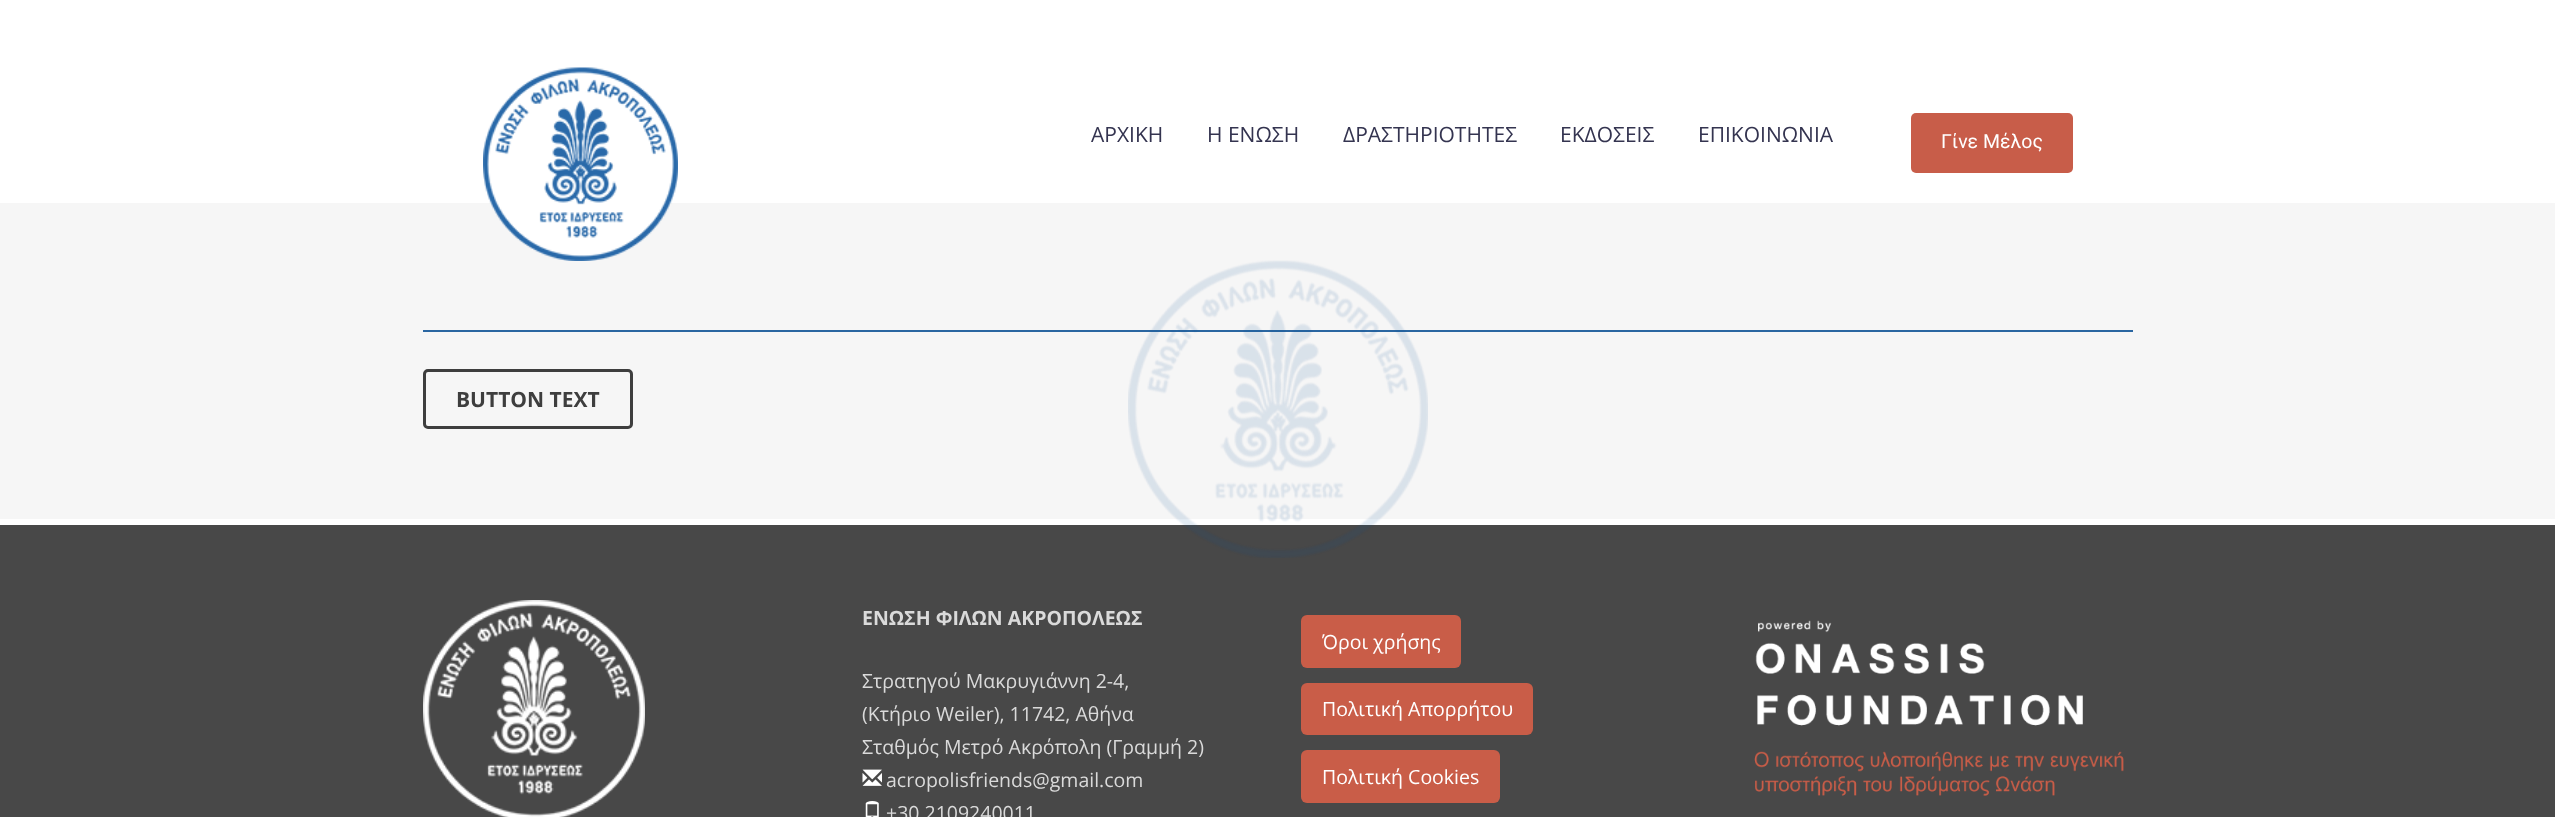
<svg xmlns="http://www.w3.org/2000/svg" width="2555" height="817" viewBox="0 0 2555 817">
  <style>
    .t1 { font: 21px Open Sans; fill: #343450; }
    .t2 { font: 19.5px Roboto; fill: #fff; }
    .t3 { font: bold 21px Open Sans; fill: #3e3e3e; }
    .t4 { font: bold 19.5px Open Sans; fill: #dadada; }
    .t5 { font: 19.5px Open Sans; fill: #dadada; }
    .t6 { font: 19.5px Open Sans; fill: #fff; }
  </style>
  <rect width="100%" height="100%" fill="#f6f6f6"/>
  <rect x="0" y="0" width="2555" height="203" fill="#fff"/>
  <image x="483" y="67" width="195" height="194" href="images/1.png"/>
  <text x="1091" y="142" class="t1">ΑΡΧΙΚΗ</text>
  <text x="1207" y="142" class="t1">Η ΕΝΩΣΗ</text>
  <text x="1343" y="142" class="t1">ΔΡΑΣΤΗΡΙΟΤΗΤΕΣ</text>
  <text x="1560" y="142" class="t1">ΕΚΔΟΣΕΙΣ</text>
  <text x="1698" y="142" class="t1">ΕΠΙΚΟΙΝΩΝΙΑ</text>
  <rect x="1911" y="113" width="162" height="60" rx="5" fill="#c85d49"/>
  <text x="1941" y="148" class="t2">Γίνε Μέλος</text>
  <rect x="423" y="330" width="1710" height="2" fill="#2a66a1"/>
  <rect x="424.5" y="370.5" width="207" height="57" rx="3.5" fill="none" stroke="#3e3e3e" stroke-width="3"/>
  <text x="456" y="407" class="t3">BUTTON TEXT</text>
  <rect x="0" y="525" width="2555" height="292" fill="#484848"/>
  <rect x="0" y="519" width="2555" height="6" fill="#fff"/>
  <image x="423" y="600" width="222" height="217" href="images/2.png"/>
  <text x="862" y="625" class="t4">ΕΝΩΣΗ ΦΙΛΩΝ ΑΚΡΟΠΟΛΕΩΣ</text>
  <text x="862" y="688" class="t5">Στρατηγού Μακρυγιάννη 2-4,</text>
  <text x="862" y="721" class="t5">(Κτήριο Weiler), 11742, Αθήνα</text>
  <text x="862" y="754" class="t5">Σταθμός Μετρό Ακρόπολη (Γραμμή 2)</text>
  <image x="862" y="769" width="20" height="17" href="images/3.png"/>
  <text x="886" y="787" class="t5">acropolisfriends@gmail.com</text>
  <image x="865" y="801" width="14" height="16" href="images/4.png"/>
  <text x="886" y="820" class="t5">+30 2109240011</text>
  <rect x="1301" y="615" width="160" height="53" rx="6" fill="#c95d48"/>
  <text x="1322" y="649" class="t6">Όροι χρήσης</text>
  <rect x="1301" y="683" width="232" height="52" rx="6" fill="#c95d48"/>
  <text x="1322" y="716" class="t6">Πολιτική Απορρήτου</text>
  <rect x="1301" y="750" width="199" height="53" rx="6" fill="#c95d48"/>
  <text x="1322" y="784" class="t6">Πολιτική Cookies</text>
  <image x="1754" y="620" width="370" height="176" href="images/5.png"/>
  <image x="1128" y="260" width="300" height="298" href="images/6.png"/>
</svg>
